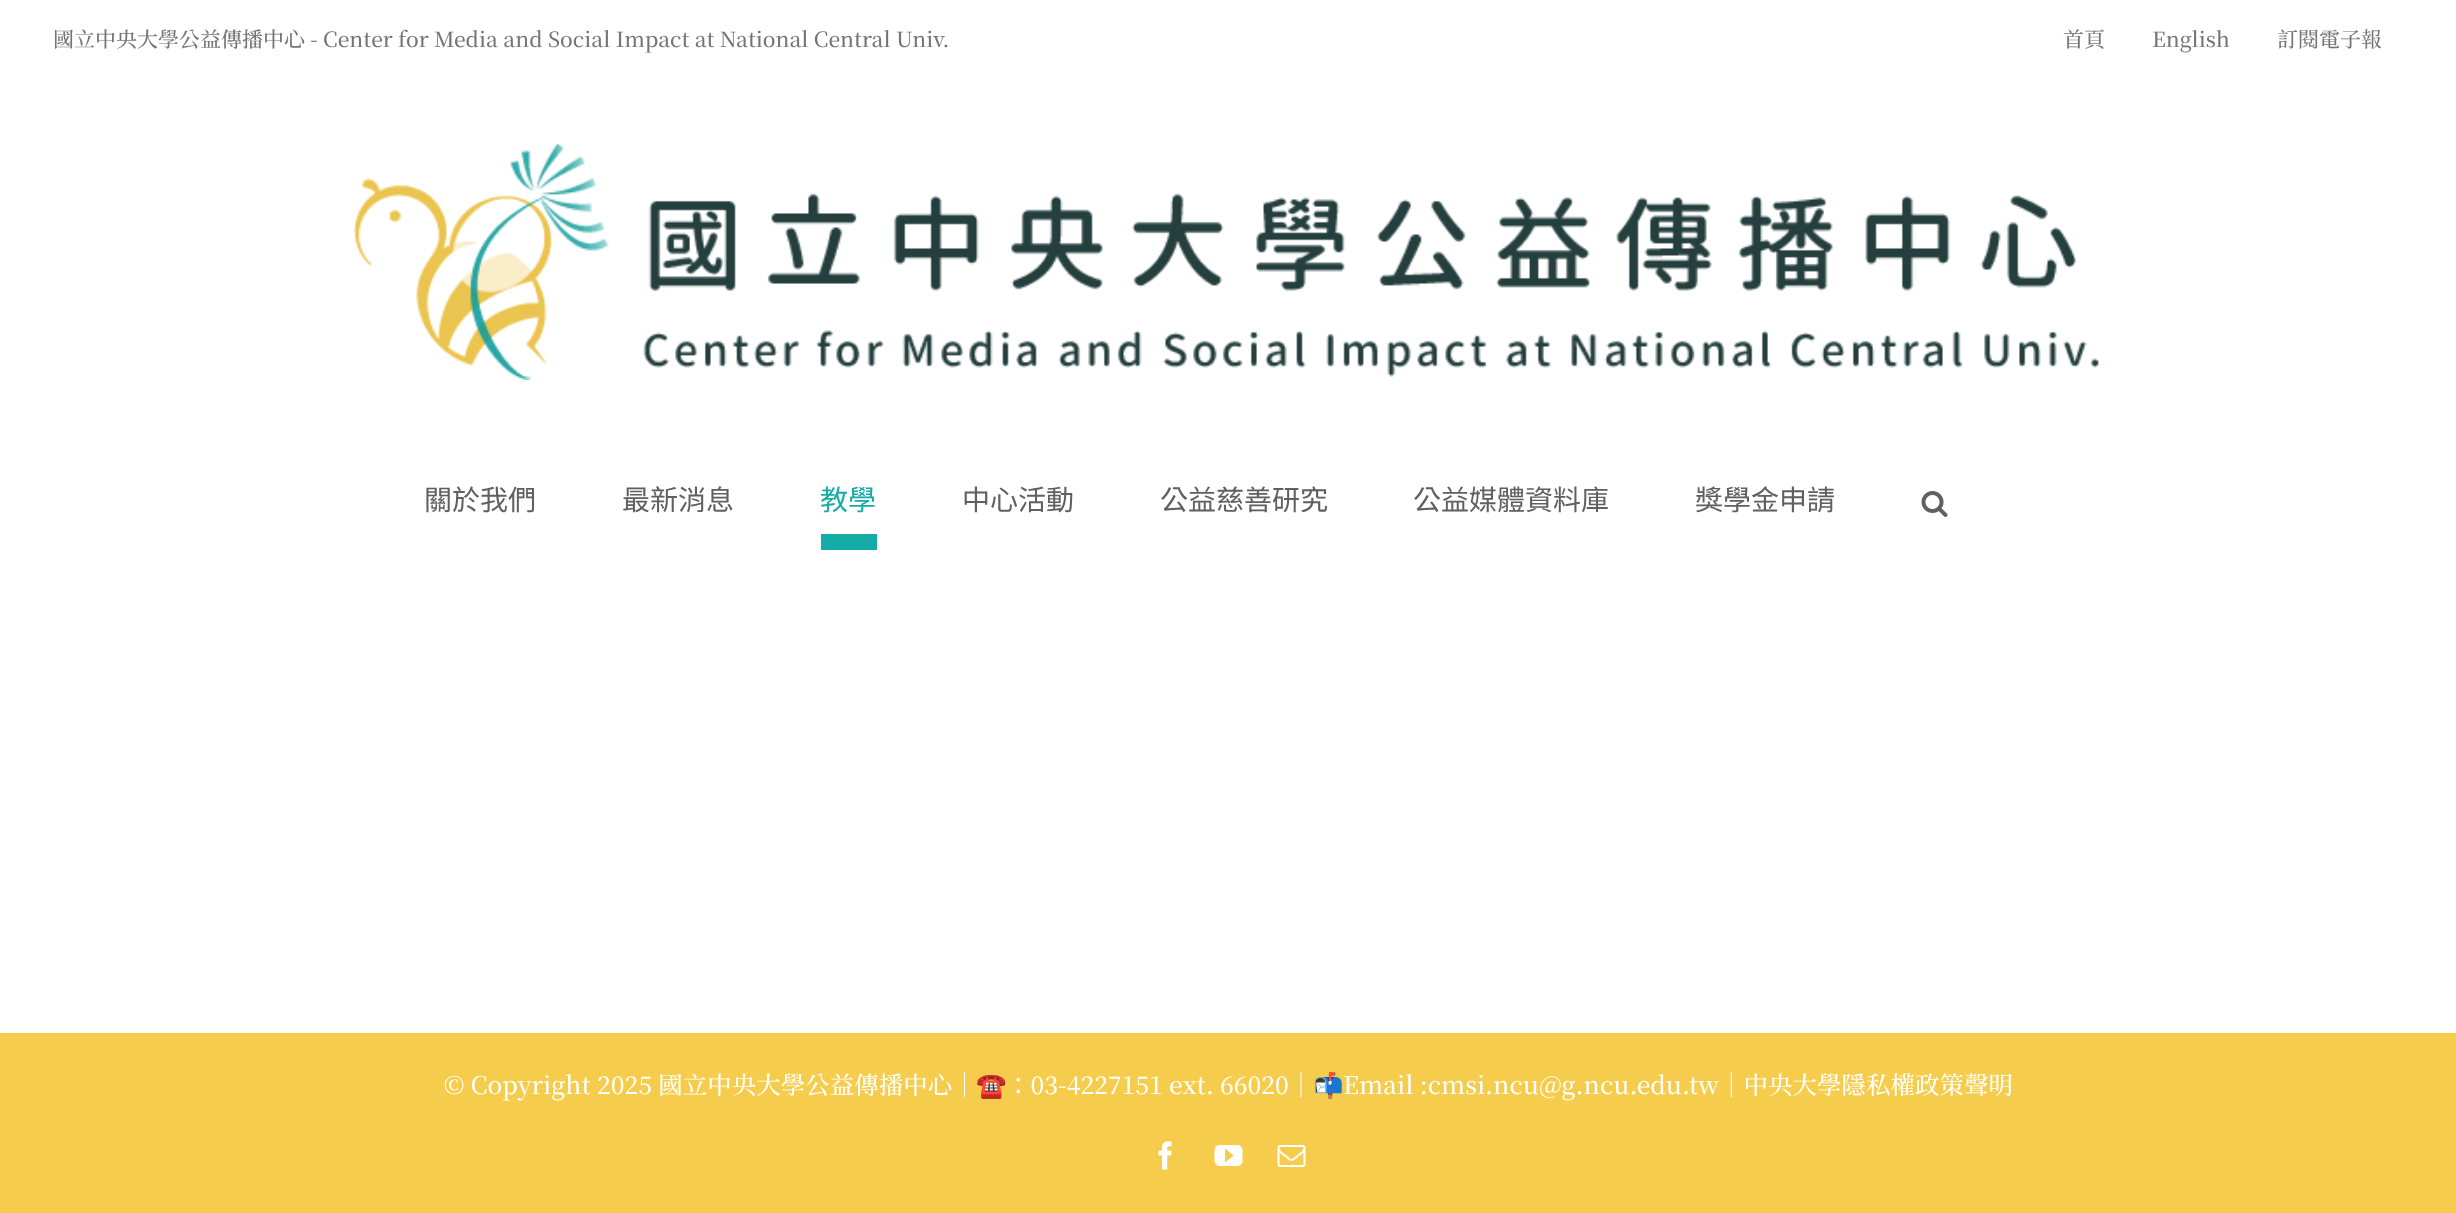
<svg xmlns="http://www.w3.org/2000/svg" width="2456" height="1213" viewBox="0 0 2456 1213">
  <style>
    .t1 { font: 500 21px Noto Serif TC; fill: #747474; }
    .t2 { font: 28px Noto Sans CJK TC; fill: #606060; }
    .t3 { font: 28px Noto Sans CJK TC; fill: #15aca8; }
    .t4 { font: 500 24.5px Noto Serif TC; fill: #fff; }
    .t5 { font: 24.5px Noto Color Emoji; fill: #fff; }
  </style>
  <rect width="100%" height="100%" fill="#fff"/>
  <text x="53" y="47" class="t1">國立中央大學公益傳播中心 - Center for Media and Social Impact at National Central Univ.</text>
  <text x="2063" y="47" class="t1">首頁</text>
  <text x="2152" y="47" class="t1">English</text>
  <text x="2277" y="47" class="t1">訂閱電子報</text>
  <image x="353" y="144" width="1746" height="236" href="images/1.png"/>
  <text x="424" y="510" class="t2">關於我們</text>
  <text x="622" y="510" class="t2">最新消息</text>
  <text x="820" y="510" class="t3">教學</text>
  <rect x="821" y="534" width="56" height="16" fill="#15aca8"/>
  <text x="962" y="510" class="t2">中心活動</text>
  <text x="1160" y="510" class="t2">公益慈善研究</text>
  <text x="1413" y="510" class="t2">公益媒體資料庫</text>
  <text x="1695" y="510" class="t2">獎學金申請</text>
  <image x="1921" y="491" width="27" height="26" href="images/2.png"/>
  <rect x="0" y="1033" width="2456" height="180" fill="#f5cc4c"/>
  <text x="444" y="1094" class="t4">© Copyright 2025 國立中央大學公益傳播中心｜</text>
  <text x="976" y="1094" class="t5">☎</text>
  <text x="1006" y="1094" class="t4">：03-4227151 ext. 66020｜</text>
  <text x="1313" y="1094" class="t5">📬</text>
  <text x="1343" y="1094" class="t4">Email :cmsi.ncu@g.ncu.edu.tw</text>
  <text x="1719" y="1094" class="t4">｜中央大學隱私權政策聲明</text>
  <image x="1158" y="1141" width="14" height="29" href="images/3.png"/>
  <image x="1214" y="1145" width="29" height="21" href="images/4.png"/>
  <image x="1277" y="1145" width="29" height="22" href="images/5.png"/>
</svg>
